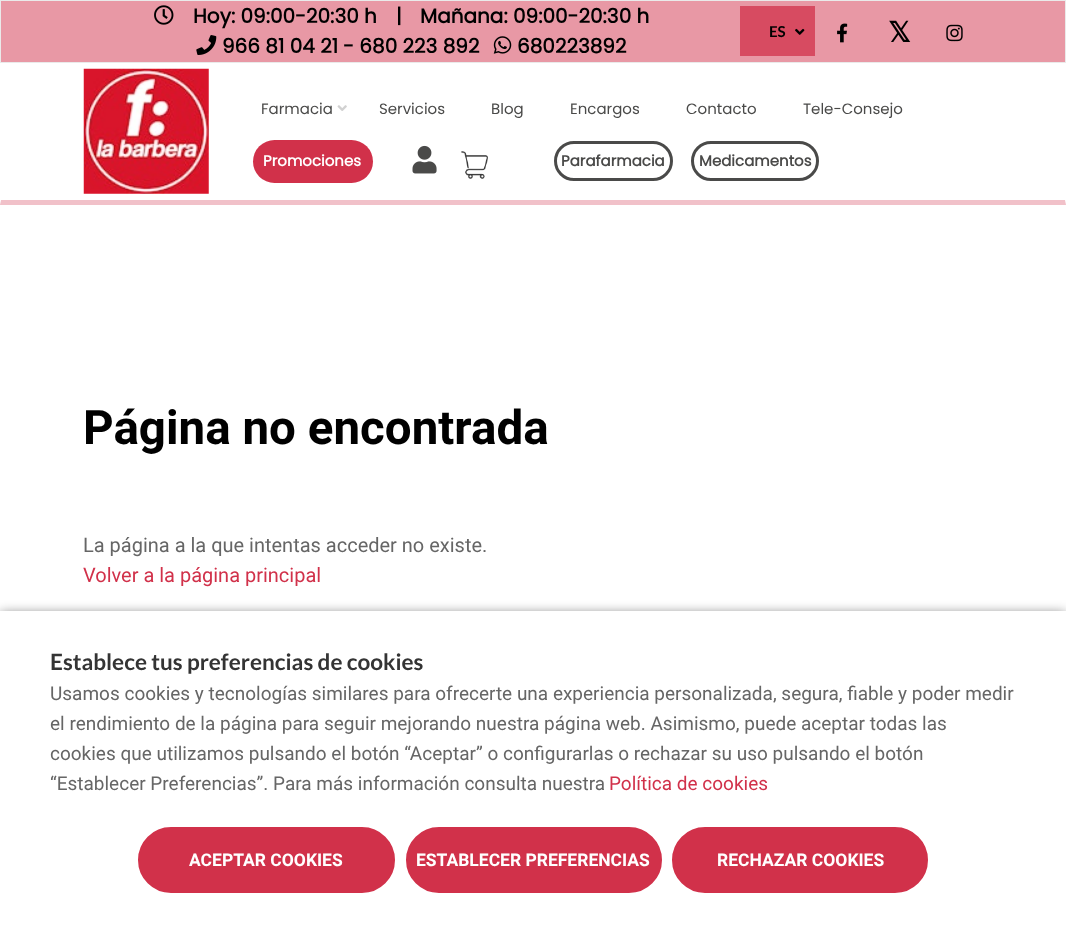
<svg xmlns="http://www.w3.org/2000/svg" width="1066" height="946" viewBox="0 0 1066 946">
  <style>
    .t1 { font: bold 20px Poppins; fill: #000; }
    .t2 { font: bold 15px Lato; fill: #000; }
    .t3 { font: bold 28px DejaVu Sans; fill: #000; }
    .t4 { font: 15px Poppins; fill: #4a4a49; }
    .t5 { font: bold 15px Poppins; fill: #fff; }
    .t6 { font: bold 15px Poppins; fill: #4a4a49; }
    .t7 { font: bold 47.5px Roboto; fill: #000; }
    .t8 { font: 20px Roboto; fill: #666; }
    .t9 { font: 20px Roboto; fill: #d1314a; }
    .t10 { font: bold 22.5px Lato; fill: #343434; }
    .t11 { font: 19px Roboto; fill: #666; }
    .t12 { font: 19px Roboto; fill: #d1314a; }
    .t13 { font: bold 17.5px Roboto; fill: #fff; }
  </style>
  <rect width="100%" height="100%" fill="#fff"/>
  <rect x="0.5" y="0.5" width="1065" height="62" fill="#e898a5" stroke="#eaeaea"/>
  <image x="154" y="5" width="20" height="20" href="images/1.png"/>
  <text x="193" y="23" class="t1">Hoy: 09:00-20:30 h</text>
  <text x="396" y="23" class="t1">|</text>
  <text x="420" y="23" class="t1">Mañana: 09:00-20:30 h</text>
  <image x="196" y="35" width="21" height="20" href="images/2.png"/>
  <text x="222" y="53" class="t1">966 81 04 21</text>
  <text x="343" y="53" class="t1">- 680 223 892</text>
  <image x="493" y="36" width="19" height="18" href="images/3.png"/>
  <text x="517" y="53" class="t1">680223892</text>
  <rect x="740" y="6" width="75" height="50" fill="#d74b61"/>
  <text x="769" y="37" class="t2">ES</text>
  <image x="795" y="28" width="10" height="7" href="images/4.png"/>
  <image x="837" y="23" width="11" height="20" href="images/5.png"/>
  <text x="888" y="42" class="t3">𝕏</text>
  <image x="946" y="24" width="17" height="18" href="images/6.png"/>
  <path d="M1066 205H0L1 200H1065Z" fill="#f1c1c9"/>
  <image x="83" y="68" width="126" height="126" href="images/7.png"/>
  <text x="261" y="114" class="t4">Farmacia</text>
  <image x="337" y="105" width="10" height="6" href="images/8.png"/>
  <text x="379" y="114" class="t4">Servicios</text>
  <text x="491" y="114" class="t4">Blog</text>
  <text x="570" y="114" class="t4">Encargos</text>
  <text x="686" y="114" class="t4">Contacto</text>
  <text x="803" y="114" class="t4">Tele-Consejo</text>
  <rect x="253" y="140" width="120" height="43" rx="21.5" fill="#d1314a"/>
  <text x="263" y="166" class="t5">Promociones</text>
  <image x="412" y="145" width="25" height="29" href="images/9.png"/>
  <image x="461" y="151" width="27" height="28" href="images/10.png"/>
  <rect x="555.5" y="142.5" width="116" height="37" rx="18.5" fill="none" stroke="#4a4a49" stroke-width="3"/>
  <text x="561" y="166" class="t6">Parafarmacia</text>
  <rect x="692.5" y="142.5" width="125" height="37" rx="18.5" fill="none" stroke="#4a4a49" stroke-width="3"/>
  <text x="699" y="166" class="t6">Medicamentos</text>
  <text x="83" y="444" class="t7">Página no encontrada</text>
  <text x="83" y="552" class="t8">La página a la que intentas acceder no existe.</text>
  <text x="83" y="582" class="t9">Volver a la página principal</text>
  <rect x="0" y="613" width="1066" height="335" fill="#00000080" filter="blur(6px)"/>
  <rect x="0" y="611" width="1066" height="335" fill="#fff"/>
  <text x="50" y="670" class="t10">Establece tus preferencias de cookies</text>
  <text x="50" y="700" class="t11">Usamos cookies y tecnologías similares para ofrecerte una experiencia personalizada, segura, fiable y poder medir</text>
  <text x="50" y="730" class="t11">el rendimiento de la página para seguir mejorando nuestra página web. Asimismo, puede aceptar todas las</text>
  <text x="50" y="760" class="t11">cookies que utilizamos pulsando el botón “Aceptar” o configurarlas o rechazar su uso pulsando el botón</text>
  <text x="50" y="790" class="t11">“Establecer Preferencias”. Para más información consulta nuestra</text>
  <text x="609" y="790" class="t12">Política de cookies</text>
  <rect x="136.5" y="825.5" width="260" height="69" rx="34.5" fill="#d1314a" stroke="#fff" stroke-width="3"/>
  <text x="189" y="866" class="t13">ACEPTAR COOKIES</text>
  <rect x="404.5" y="825.5" width="259" height="69" rx="34.5" fill="#d1314a" stroke="#fff" stroke-width="3"/>
  <text x="416" y="866" class="t13">ESTABLECER PREFERENCIAS</text>
  <rect x="670.5" y="825.5" width="259" height="69" rx="34.5" fill="#d1314a" stroke="#fff" stroke-width="3"/>
  <text x="717" y="866" class="t13">RECHAZAR COOKIES</text>
</svg>
